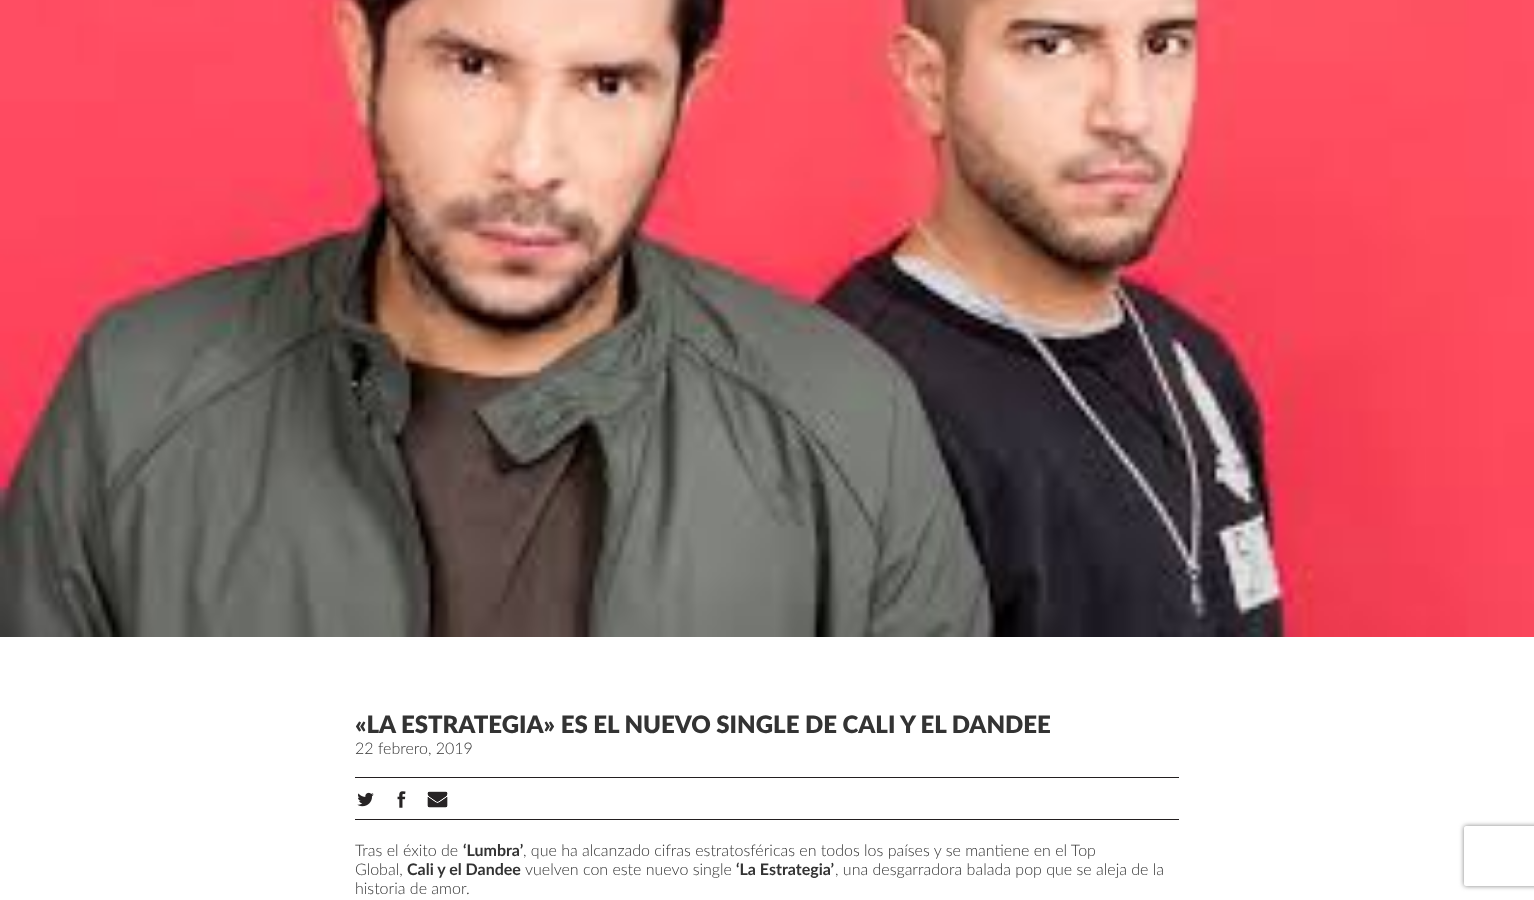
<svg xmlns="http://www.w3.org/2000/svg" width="1534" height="900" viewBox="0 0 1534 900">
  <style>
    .t1 { font: 900 24px Lato; fill: #333; }
    .t2 { font: 300 16px Lato; fill: #333; }
    .t3 { font: bold 16px Lato; fill: #333; }
  </style>
  <defs>
    <clipPath id="clip1"><path d="M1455 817H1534V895H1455ZM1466 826H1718C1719 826 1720 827 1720 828V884C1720 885 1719 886 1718 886H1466C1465 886 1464 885 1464 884V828C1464 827 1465 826 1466 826Z" clip-rule="evenodd"/></clipPath>
  </defs>
  <rect width="100%" height="100%" fill="#fff"/>
  <image x="0" y="0" width="1534" height="637" href="images/1.png"/>
  <text x="355" y="733" class="t1">«LA ESTRATEGIA» ES EL NUEVO SINGLE DE CALI Y EL DANDEE</text>
  <text x="355" y="754" class="t2">22 febrero, 2019</text>
  <rect x="355" y="777" width="824" height="1" fill="#231f20"/>
  <image x="357" y="792" width="17" height="15" href="images/2.png"/>
  <image x="397" y="791" width="9" height="17" href="images/3.png"/>
  <image x="427" y="791" width="21" height="17" href="images/4.png"/>
  <rect x="355" y="819" width="824" height="1" fill="#231f20"/>
  <text x="355" y="856" class="t2">Tras el éxito de</text>
  <text x="463" y="856" class="t3">‘Lumbra’</text>
  <text x="523" y="856" class="t2">, que ha alcanzado cifras estratosféricas en todos los países y se mantiene en el Top</text>
  <text x="355" y="875" class="t2">Global,</text>
  <text x="407" y="875" class="t3">Cali y el Dandee</text>
  <text x="525" y="875" class="t2">vuelven con este nuevo single</text>
  <text x="736" y="875" class="t3">‘La Estrategia’</text>
  <text x="835" y="875" class="t2">, una desgarradora balada pop que se aleja de la</text>
  <text x="355" y="894" class="t2">historia de amor.</text>
  <g clip-path="url(#clip1)">
    <rect x="1464" y="826" width="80" height="60" rx="2" fill="#808080" filter="blur(2.5px)"/>
  </g>
</svg>
